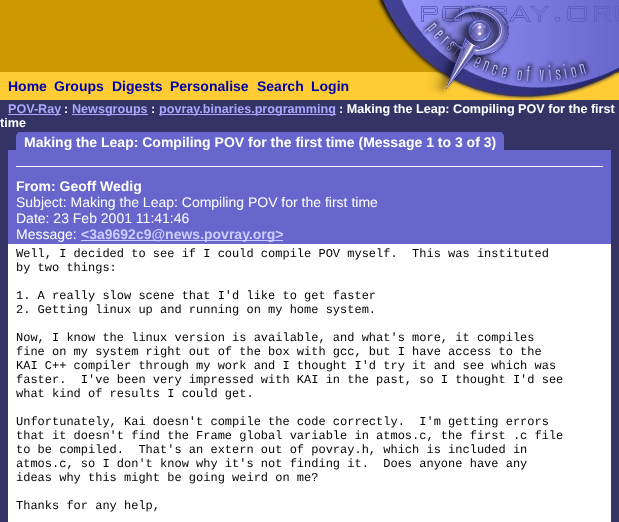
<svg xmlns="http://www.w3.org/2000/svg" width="619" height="522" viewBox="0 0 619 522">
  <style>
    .t1 { font: bold 14px Liberation Sans; fill: #00a; }
    .t2 { font: bold 12.6px Liberation Sans; fill: #aaf; }
    .t3 { font: bold 12.6px Liberation Sans; fill: #fff; }
    .t4 { font: bold 14px Liberation Sans; fill: #fff; }
    .t5 { font: 14px Liberation Sans; fill: #fff; }
    .t6 { font: bold 14px Liberation Sans; fill: #ccf; }
    .t7 { font: 12px Liberation Mono; fill: #000; }
  </style>
  <rect width="100%" height="100%" fill="#336"/>
  <rect x="0" y="0" width="427" height="72" fill="#c90"/>
  <image x="374" y="0" width="53" height="68" href="images/1.png"/>
  <image x="427" y="0" width="40" height="72" href="images/2.png"/>
  <image x="467" y="0" width="152" height="72" href="images/3.png"/>
  <rect x="0" y="72" width="427" height="28" fill="#fc3"/>
  <text x="8" y="91" class="t1">Home</text>
  <text x="54" y="91" class="t1">Groups</text>
  <text x="112" y="91" class="t1">Digests</text>
  <text x="170" y="91" class="t1">Personalise</text>
  <text x="257" y="91" class="t1">Search</text>
  <text x="311" y="91" class="t1">Login</text>
  <rect x="427" y="98" width="40" height="2" fill="#fc3"/>
  <image x="427" y="72" width="40" height="26" href="images/4.png"/>
  <image x="467" y="72" width="152" height="28" href="images/5.png"/>
  <rect x="8" y="114" width="53" height="1" fill="#aaf"/>
  <text x="8" y="113" class="t2">POV-Ray</text>
  <text x="64" y="113" class="t3">:</text>
  <rect x="72" y="114" width="76" height="1" fill="#aaf"/>
  <text x="72" y="113" class="t2">Newsgroups</text>
  <text x="151" y="113" class="t3">:</text>
  <rect x="159" y="114" width="177" height="1" fill="#aaf"/>
  <text x="159" y="113" class="t2">povray.binaries.programming</text>
  <text x="339" y="113" class="t3">: Making the Leap: Compiling POV for the first</text>
  <text x="0" y="127" class="t3">time</text>
  <path d="M20 132H500C502 132 504 134 504 136V150H16V136C16 134 18 132 20 132Z" fill="#66c"/>
  <text x="24" y="147" class="t4">Making the Leap: Compiling POV for the first time (Message 1 to 3 of 3)</text>
  <rect x="8" y="150" width="603" height="4" fill="#66c"/>
  <rect x="8" y="154" width="603" height="24" fill="#66c"/>
  <rect x="16" y="166" width="587" height="1" fill="#fff"/>
  <rect x="8" y="178" width="603" height="66" fill="#66c"/>
  <text x="16" y="191" class="t4">From: Geoff Wedig</text>
  <text x="16" y="207" class="t5">Subject: Making the Leap: Compiling POV for the first time</text>
  <text x="16" y="223" class="t5">Date: 23 Feb 2001 11:41:46</text>
  <text x="16" y="239" class="t5">Message:</text>
  <rect x="81" y="240" width="202" height="1" fill="#ccf"/>
  <text x="81" y="239" class="t6">&lt;3a9692c9@news.povray.org&gt;</text>
  <rect x="8" y="244" width="603" height="2" fill="#fff"/>
  <rect x="8" y="246" width="603" height="276" fill="#fff"/>
  <text x="16" y="257" class="t7" xml:space="preserve">Well, I decided to see if I could compile POV myself.  This was instituted</text>
  <text x="16" y="271" class="t7">by two things:</text>
  <text x="16" y="299" class="t7">1. A really slow scene that I'd like to get faster</text>
  <text x="16" y="313" class="t7">2. Getting linux up and running on my home system.</text>
  <text x="16" y="341" class="t7">Now, I know the linux version is available, and what's more, it compiles</text>
  <text x="16" y="355" class="t7">fine on my system right out of the box with gcc, but I have access to the</text>
  <text x="16" y="369" class="t7">KAI C++ compiler through my work and I thought I'd try it and see which was</text>
  <text x="16" y="383" class="t7" xml:space="preserve">faster.  I've been very impressed with KAI in the past, so I thought I'd see</text>
  <text x="16" y="397" class="t7">what kind of results I could get.</text>
  <text x="16" y="425" class="t7" xml:space="preserve">Unfortunately, Kai doesn't compile the code correctly.  I'm getting errors</text>
  <text x="16" y="439" class="t7">that it doesn't find the Frame global variable in atmos.c, the first .c file</text>
  <text x="16" y="453" class="t7" xml:space="preserve">to be compiled.  That's an extern out of povray.h, which is included in</text>
  <text x="16" y="467" class="t7" xml:space="preserve">atmos.c, so I don't know why it's not finding it.  Does anyone have any</text>
  <text x="16" y="481" class="t7">ideas why this might be going weird on me?</text>
  <text x="16" y="509" class="t7">Thanks for any help,</text>
</svg>
